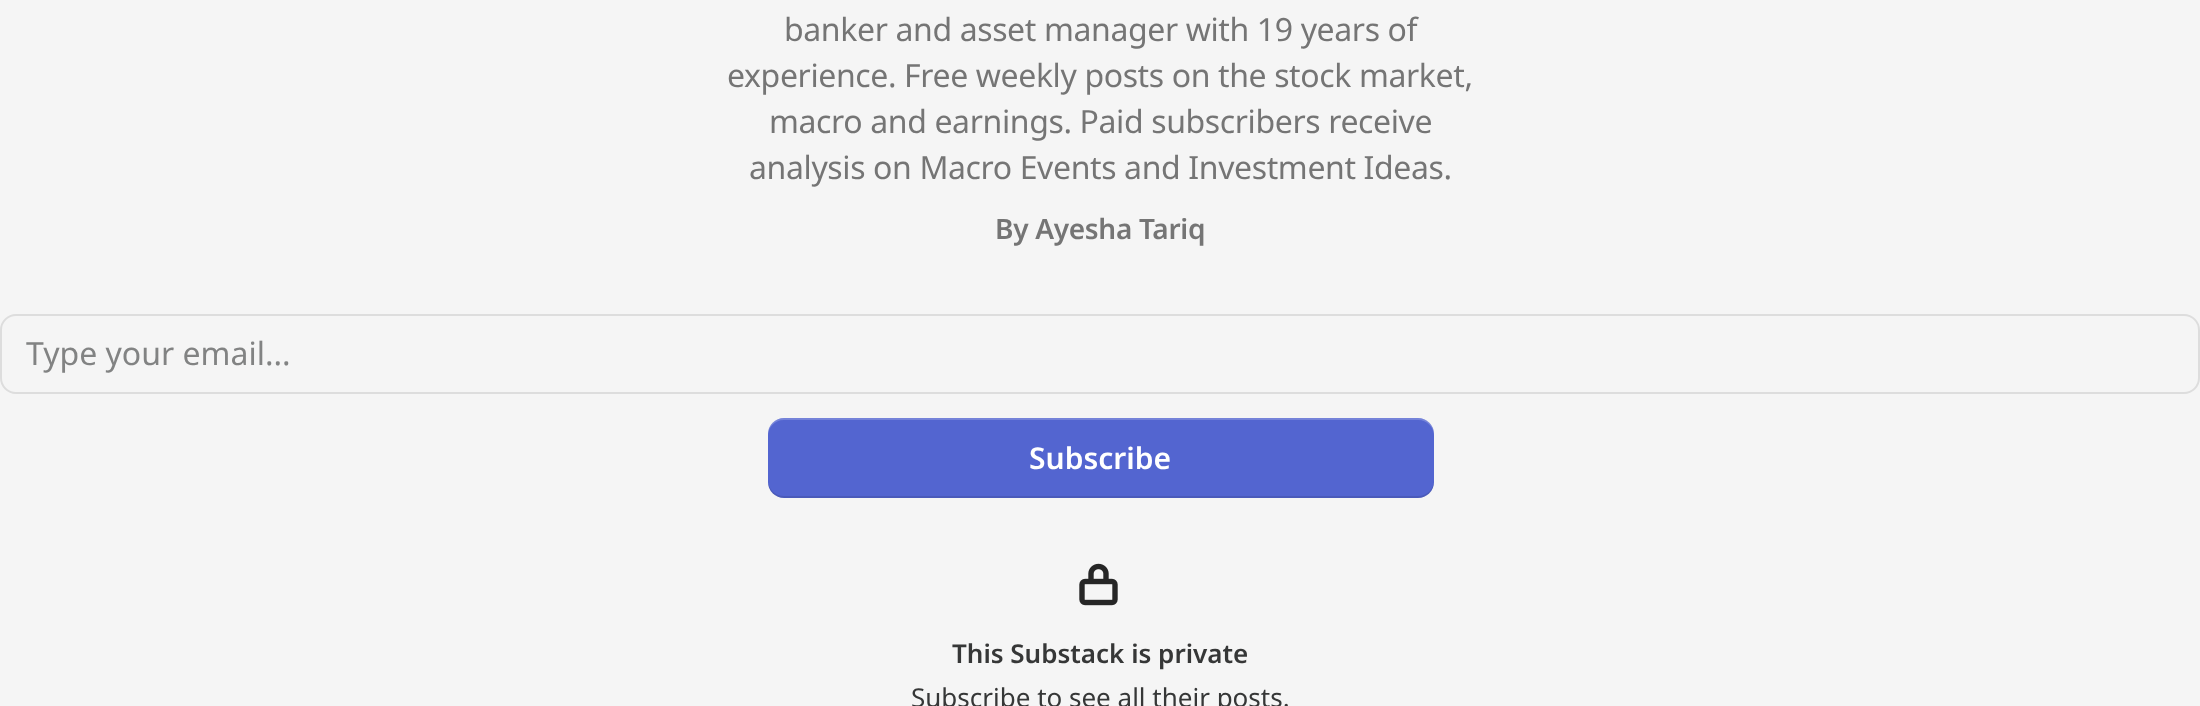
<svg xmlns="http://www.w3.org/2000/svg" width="2200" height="706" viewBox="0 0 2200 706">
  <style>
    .t1 { font: 32px Noto Sans; letter-spacing: -0.38px; fill: #757575; }
    .t2 { font: 600 28px Noto Sans; letter-spacing: -0.3px; fill: #757575; }
    .t3 { font: 32px Noto Sans; fill: #828383; }
    .t4 { font: 600 30px Noto Sans; fill: #fff; }
    .t5 { font: 600 26px Noto Sans; fill: #363737; }
    .t6 { font: 26px Noto Sans; fill: #363737; }
  </style>
  <rect width="100%" height="100%" fill="#f5f5f5"/>
  <text x="784" y="41" class="t1">banker and asset manager with 19 years of</text>
  <text x="727" y="87" class="t1">experience. Free weekly posts on the stock market,</text>
  <text x="769" y="133" class="t1">macro and earnings. Paid subscribers receive</text>
  <text x="749" y="179" class="t1">analysis on Macro Events and Investment Ideas.</text>
  <text x="995" y="239" class="t2">By Ayesha Tariq</text>
  <rect x="1" y="315" width="2198" height="78" rx="15" fill="none" stroke="#ddd" stroke-width="2"/>
  <text x="26" y="365" class="t3">Type your email...</text>
  <rect x="768" y="418" width="666" height="80" rx="16" fill="#5365d0"/>
  <path d="M768 480V482C768 491 775 498 784 498H1418C1427 498 1434 491 1434 482V480C1434 489 1427 496 1418 496H784C775 496 768 489 768 480Z" fill="#0000001a"/>
  <path d="M784 420H1418C1427 420 1434 427 1434 436V434C1434 425 1427 418 1418 418H784C775 418 768 425 768 434V436C768 427 775 420 784 420Z" fill="#ffffff33"/>
  <text x="1029" y="469" class="t4">Subscribe</text>
  <image x="1079" y="563" width="39" height="43" href="images/1.png"/>
  <text x="952" y="663" class="t5">This Substack is private</text>
  <text x="911" y="707" class="t6">Subscribe to see all their posts.</text>
</svg>
